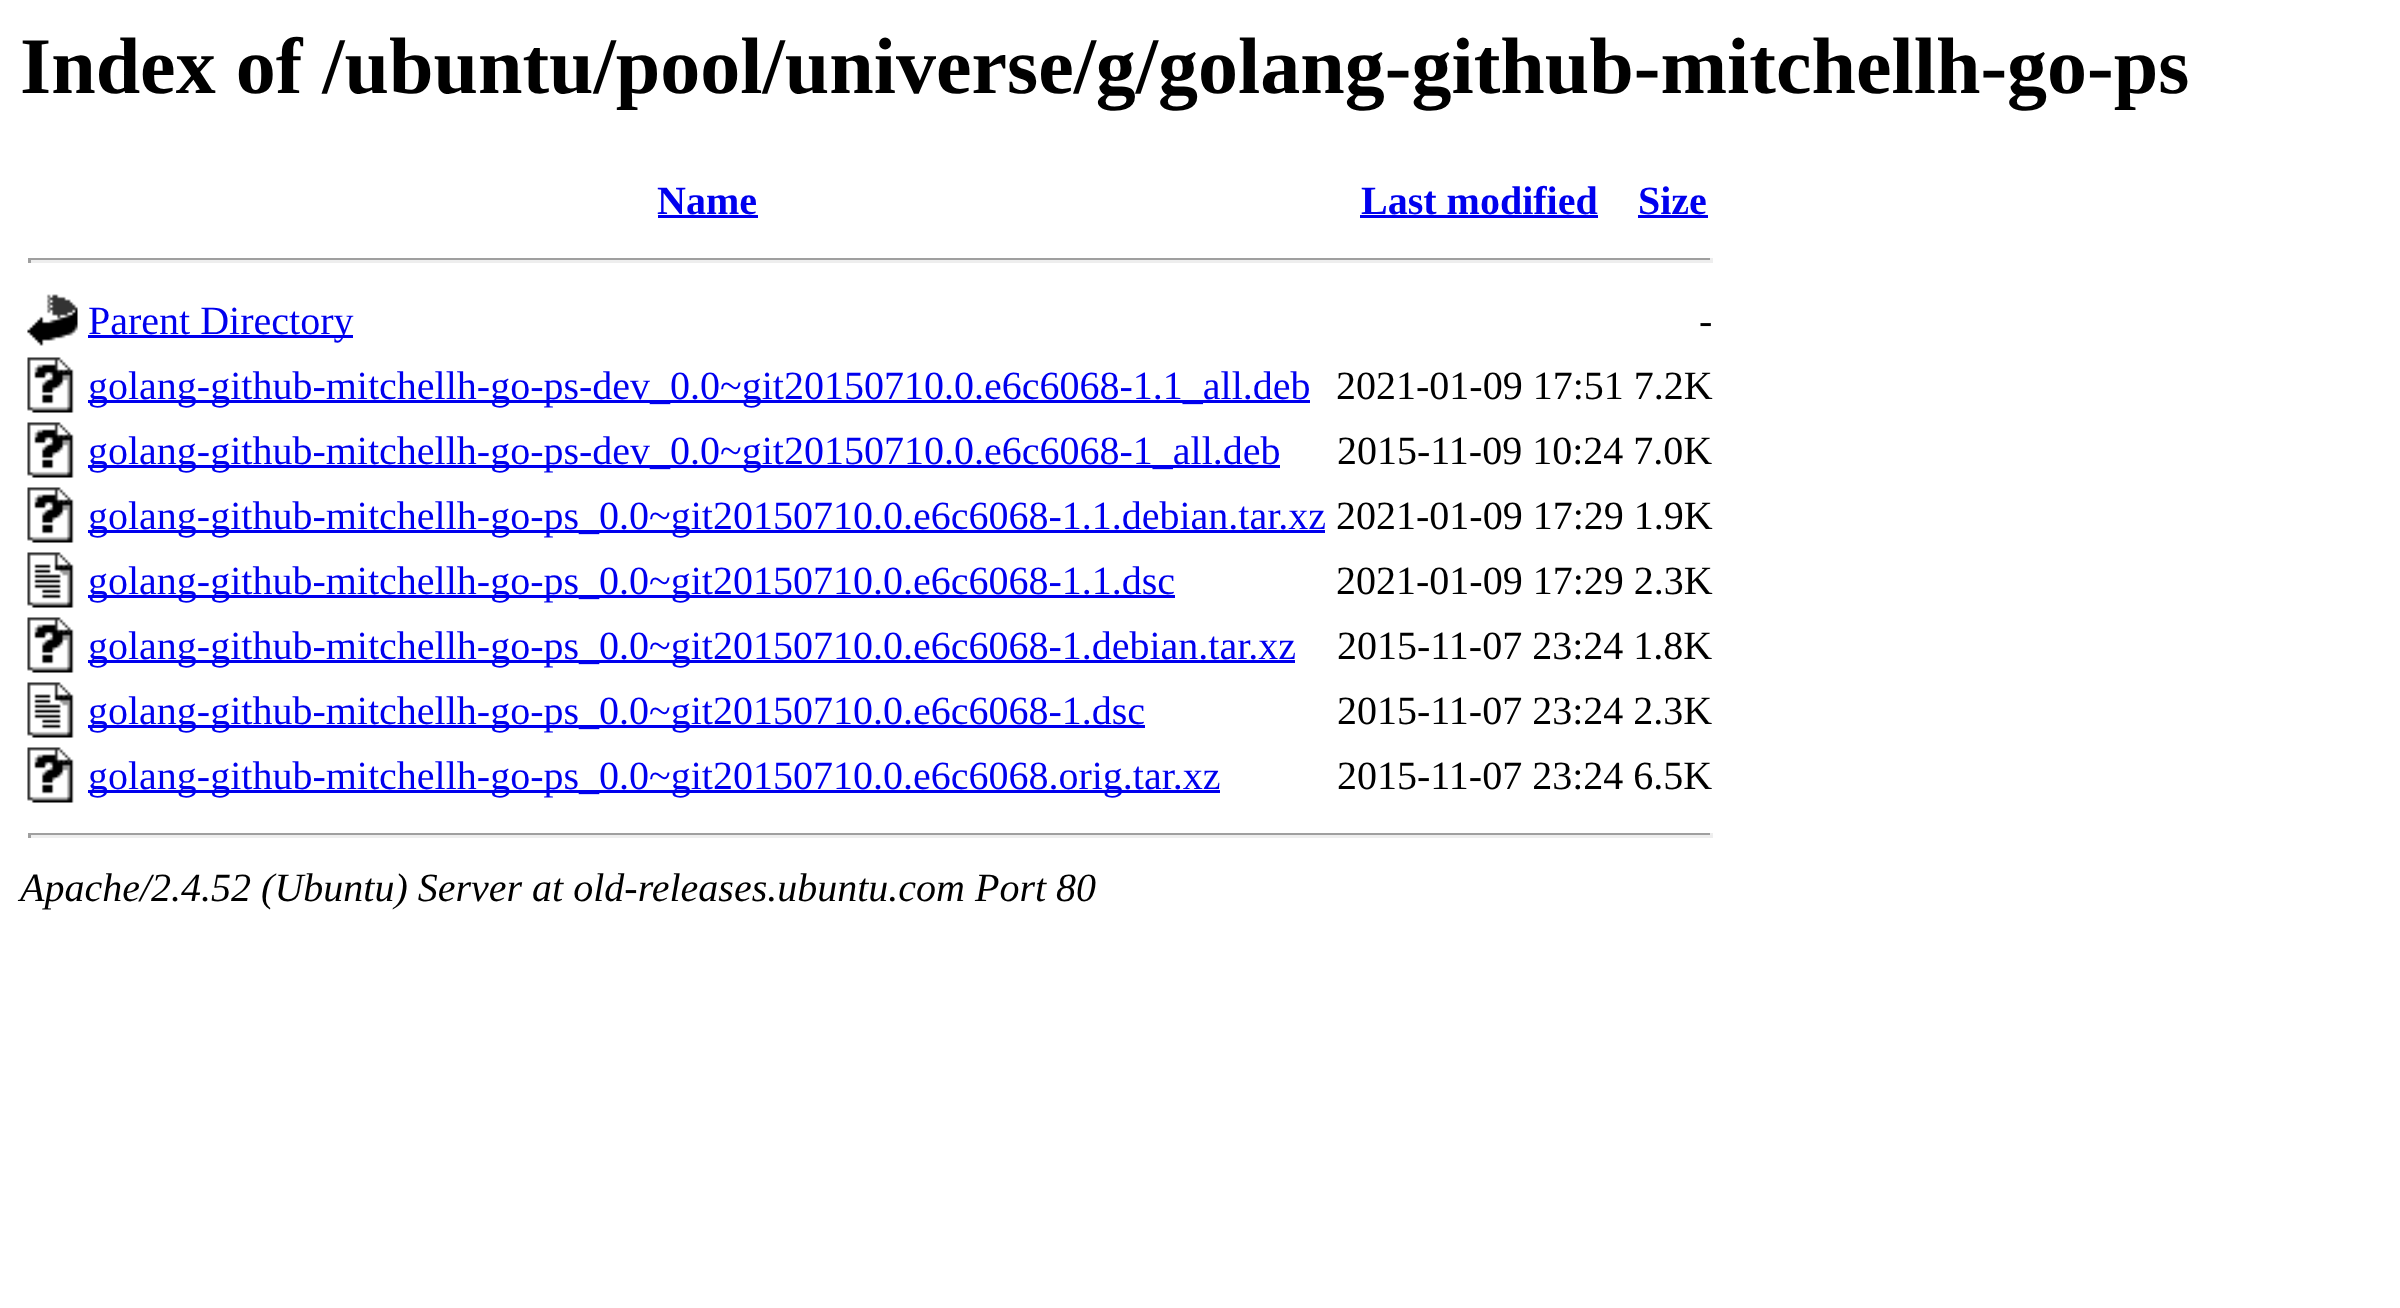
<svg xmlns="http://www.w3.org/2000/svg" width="2400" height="1308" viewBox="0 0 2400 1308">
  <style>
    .t1 { font: bold 80px Liberation Serif; fill: #000; }
    .t2 { font: bold 40px Liberation Serif; fill: #00e; }
    .t3 { font: 40px Liberation Serif; fill: #00e; }
    .t4 { font: 40px Liberation Serif; fill: #000; }
    .t5 { font: italic 40px Liberation Serif; fill: #000; }
  </style>
  <rect width="100%" height="100%" fill="#fff"/>
  <text x="20" y="93" class="t1">Index of /ubuntu/pool/universe/g/golang-github-mitchellh-go-ps</text>
  <text x="657" y="214" class="t2">Name</text>
  <rect x="658" y="215" width="100" height="3" fill="#00e"/>
  <text x="1361" y="214" class="t2">Last modified</text>
  <rect x="1360" y="215" width="238" height="3" fill="#00e"/>
  <text x="1638" y="214" class="t2">Size</text>
  <rect x="1638" y="215" width="70" height="3" fill="#00e"/>
  <rect x="28" y="258" width="1685" height="2" fill="#9f9f9f"/>
  <rect x="1710" y="258" width="3" height="5" fill="#eee"/>
  <rect x="28" y="260" width="1685" height="3" fill="#eee"/>
  <rect x="28" y="258" width="3" height="5" fill="#9f9f9f"/>
  <image x="27" y="294" width="51" height="52" href="images/1.png"/>
  <rect x="88" y="335" width="265" height="3" fill="#00e"/>
  <text x="88" y="334" class="t3">Parent Directory</text>
  <text x="1699" y="334" class="t4">-</text>
  <image x="27" y="357" width="47" height="56" href="images/2.png"/>
  <rect x="88" y="400" width="1222" height="3" fill="#00e"/>
  <text x="88" y="399" class="t3">golang-github-mitchellh-go-ps-dev_0.0~git20150710.0.e6c6068-1.1_all.deb</text>
  <text x="1336" y="399" class="t4">2021-01-09 17:51 7.2K</text>
  <image x="27" y="422" width="47" height="56" href="images/2.png"/>
  <rect x="88" y="465" width="1192" height="3" fill="#00e"/>
  <text x="88" y="464" class="t3">golang-github-mitchellh-go-ps-dev_0.0~git20150710.0.e6c6068-1_all.deb</text>
  <text x="1337" y="464" class="t4">2015-11-09 10:24 7.0K</text>
  <image x="27" y="487" width="47" height="56" href="images/2.png"/>
  <rect x="88" y="530" width="1237" height="3" fill="#00e"/>
  <text x="88" y="529" class="t3">golang-github-mitchellh-go-ps_0.0~git20150710.0.e6c6068-1.1.debian.tar.xz</text>
  <text x="1336" y="529" class="t4">2021-01-09 17:29 1.9K</text>
  <image x="27" y="552" width="47" height="56" href="images/3.png"/>
  <rect x="88" y="595" width="1087" height="3" fill="#00e"/>
  <text x="88" y="594" class="t3">golang-github-mitchellh-go-ps_0.0~git20150710.0.e6c6068-1.1.dsc</text>
  <text x="1336" y="594" class="t4">2021-01-09 17:29 2.3K</text>
  <image x="27" y="617" width="47" height="56" href="images/2.png"/>
  <rect x="88" y="660" width="1207" height="3" fill="#00e"/>
  <text x="88" y="659" class="t3">golang-github-mitchellh-go-ps_0.0~git20150710.0.e6c6068-1.debian.tar.xz</text>
  <text x="1337" y="659" class="t4">2015-11-07 23:24 1.8K</text>
  <image x="27" y="682" width="47" height="56" href="images/4.png"/>
  <rect x="88" y="725" width="1057" height="3" fill="#00e"/>
  <text x="88" y="724" class="t3">golang-github-mitchellh-go-ps_0.0~git20150710.0.e6c6068-1.dsc</text>
  <text x="1337" y="724" class="t4">2015-11-07 23:24 2.3K</text>
  <image x="27" y="747" width="47" height="56" href="images/2.png"/>
  <rect x="88" y="790" width="1132" height="3" fill="#00e"/>
  <text x="88" y="789" class="t3">golang-github-mitchellh-go-ps_0.0~git20150710.0.e6c6068.orig.tar.xz</text>
  <text x="1337" y="789" class="t4">2015-11-07 23:24 6.5K</text>
  <rect x="28" y="833" width="1685" height="2" fill="#9f9f9f"/>
  <rect x="1710" y="833" width="3" height="5" fill="#eee"/>
  <rect x="28" y="835" width="1685" height="3" fill="#eee"/>
  <rect x="28" y="833" width="3" height="5" fill="#9f9f9f"/>
  <text x="20" y="901" class="t5">Apache/2.4.52 (Ubuntu) Server at old-releases.ubuntu.com Port 80</text>
</svg>
